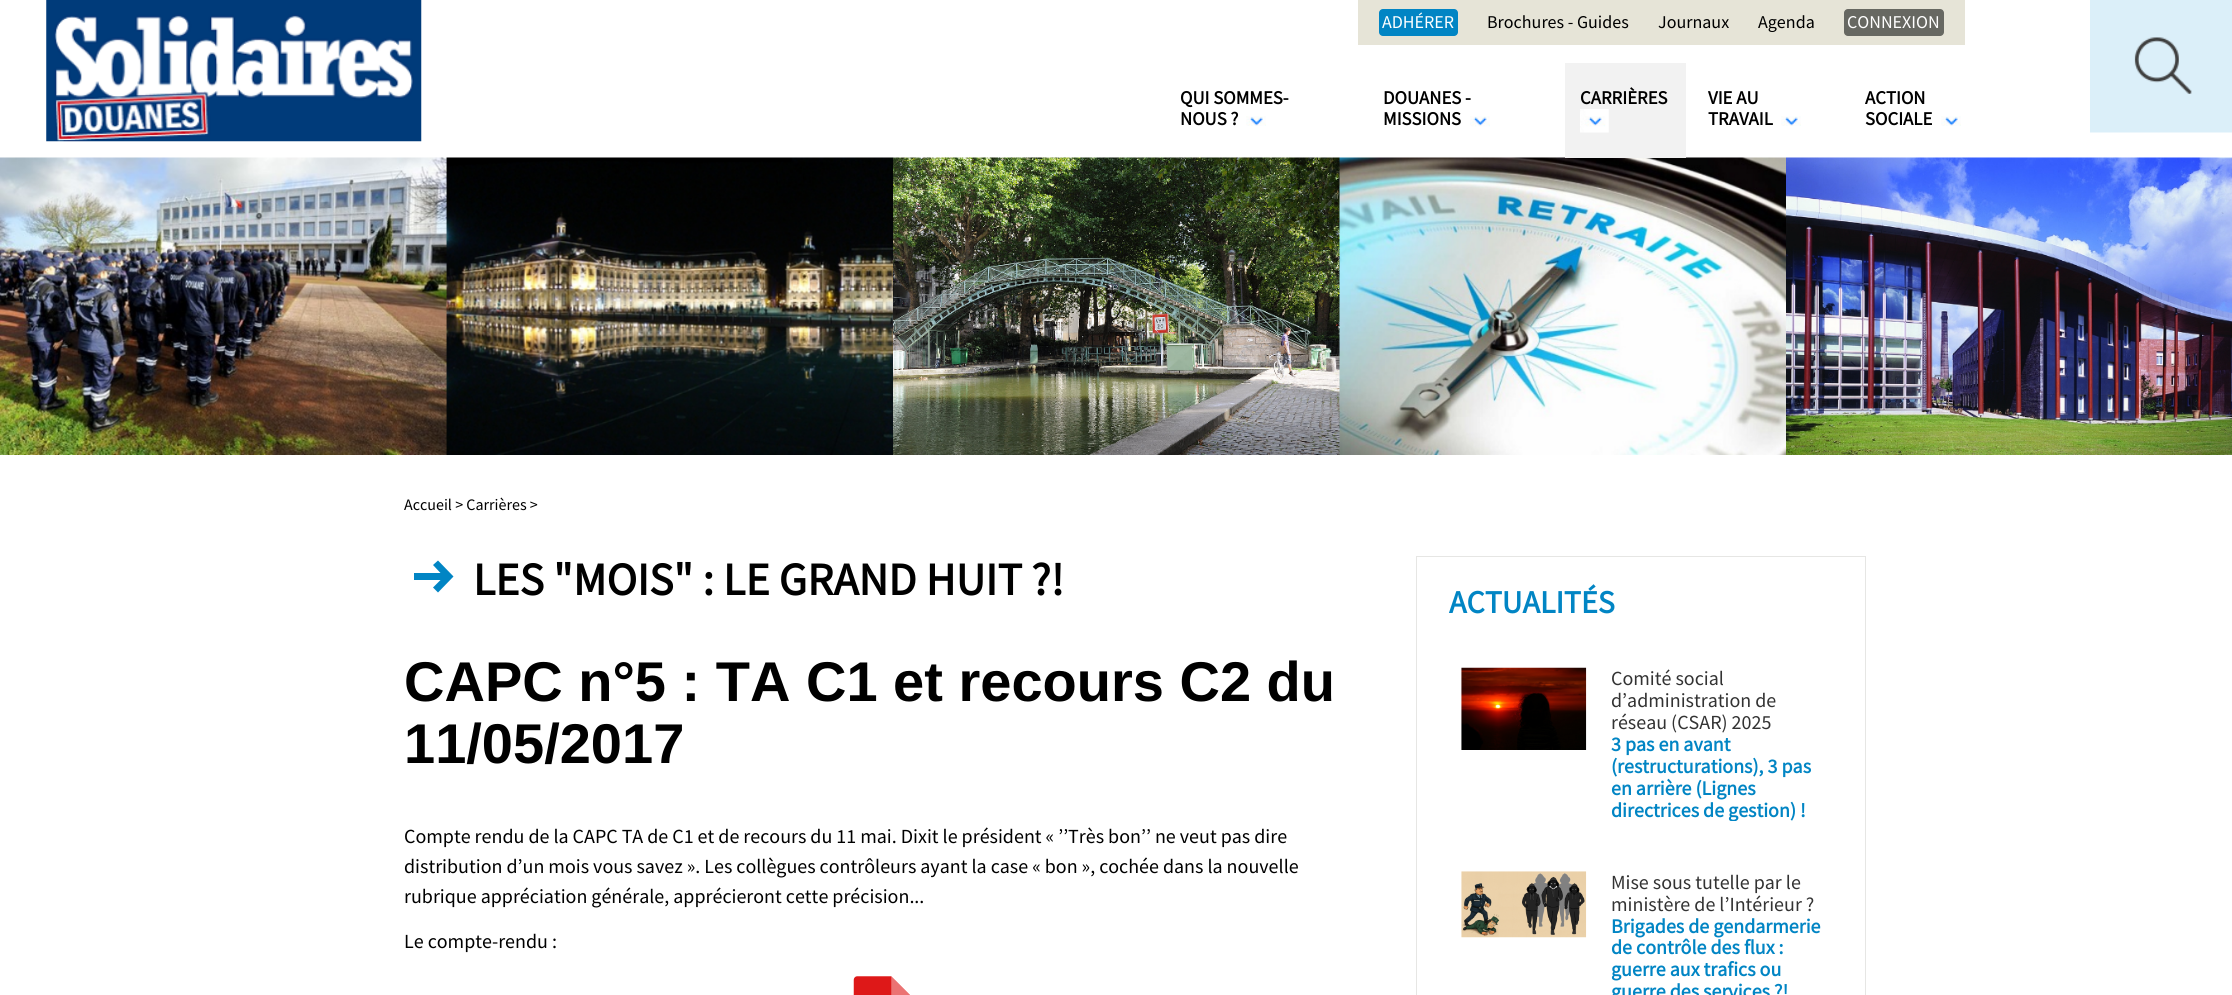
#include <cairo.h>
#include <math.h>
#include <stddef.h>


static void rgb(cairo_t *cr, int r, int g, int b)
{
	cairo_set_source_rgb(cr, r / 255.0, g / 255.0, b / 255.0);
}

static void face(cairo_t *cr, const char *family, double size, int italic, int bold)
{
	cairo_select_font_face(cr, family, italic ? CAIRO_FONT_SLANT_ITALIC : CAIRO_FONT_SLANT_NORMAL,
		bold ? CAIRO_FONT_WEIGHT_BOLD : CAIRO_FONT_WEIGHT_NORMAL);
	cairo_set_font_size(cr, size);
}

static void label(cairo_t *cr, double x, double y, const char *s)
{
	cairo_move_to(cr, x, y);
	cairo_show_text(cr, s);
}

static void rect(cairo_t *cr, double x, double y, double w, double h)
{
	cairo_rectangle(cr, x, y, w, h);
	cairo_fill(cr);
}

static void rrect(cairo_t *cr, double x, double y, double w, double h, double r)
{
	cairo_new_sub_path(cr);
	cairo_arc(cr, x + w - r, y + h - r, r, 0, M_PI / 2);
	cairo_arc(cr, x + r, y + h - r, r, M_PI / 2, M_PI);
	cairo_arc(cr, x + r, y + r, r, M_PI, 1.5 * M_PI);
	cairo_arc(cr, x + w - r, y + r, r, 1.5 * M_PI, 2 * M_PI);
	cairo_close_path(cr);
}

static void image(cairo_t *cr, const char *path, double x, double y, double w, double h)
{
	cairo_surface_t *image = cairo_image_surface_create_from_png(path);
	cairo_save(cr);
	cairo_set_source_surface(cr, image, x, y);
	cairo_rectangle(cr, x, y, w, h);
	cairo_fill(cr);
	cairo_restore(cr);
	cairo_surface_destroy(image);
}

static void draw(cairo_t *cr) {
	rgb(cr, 255, 255, 255);
	cairo_paint(cr);
	image(cr, "image0.png", 46, 0, 376, 142);
	rgb(cr, 230, 228, 215);
	rect(cr, 1358, 0, 607, 45);
	rgb(cr, 1, 133, 196);
	rrect(cr, 1379, 9, 79, 27, 4);
	cairo_fill(cr);
	face(cr, "Source Sans Pro", 18, 0, 0);
	rgb(cr, 255, 255, 255);
	label(cr, 1382, 28, "ADHÉRER");
	rgb(cr, 0, 0, 0);
	label(cr, 1487, 28, "Brochures - Guides");
	label(cr, 1658, 28, "Journaux");
	label(cr, 1758, 28, "Agenda");
	rgb(cr, 103, 104, 98);
	rrect(cr, 1844, 9, 100, 27, 4);
	cairo_fill(cr);
	rgb(cr, 255, 255, 255);
	label(cr, 1847, 28, "CONNEXION");
	image(cr, "image1.png", 2090, 0, 142, 133);
	face(cr, "Source Sans Pro", 18.75, 0, 1);
	rgb(cr, 0, 0, 0);
	label(cr, 1180, 104, "QUI SOMMES-");
	label(cr, 1180, 125, "NOUS ?");
	image(cr, "image2.png", 1246, 116, 20, 10);
	label(cr, 1383, 104, "DOUANES -");
	label(cr, 1383, 125, "MISSIONS");
	image(cr, "image3.png", 1470, 116, 20, 11);
	image(cr, "image5.png", 0, 157, 2232, 298);
	rgb(cr, 242, 242, 242);
	rect(cr, 1565, 63, 121, 95);
	rgb(cr, 0, 0, 0);
	label(cr, 1580, 104, "CARRIÈRES");
	image(cr, "image4.png", 1580, 109, 29, 24);
	label(cr, 1708, 104, "VIE AU");
	label(cr, 1708, 125, "TRAVAIL");
	image(cr, "image2.png", 1781, 116, 20, 10);
	label(cr, 1865, 104, "ACTION");
	label(cr, 1865, 125, "SOCIALE");
	image(cr, "image2.png", 1941, 116, 20, 10);
	face(cr, "Source Sans Pro", 16, 0, 0);
	label(cr, 404, 510, "Accueil > Carrières >");
	rgb(cr, 1, 133, 196);
	cairo_new_path(cr);
	cairo_move_to(cr, 438, 560.5);
	cairo_line_to(cr, 433, 565);
	cairo_line_to(cr, 440.5, 573);
	cairo_line_to(cr, 414, 573);
	cairo_line_to(cr, 414, 580);
	cairo_line_to(cr, 440.5, 580);
	cairo_line_to(cr, 433, 587.5);
	cairo_line_to(cr, 438, 592.5);
	cairo_line_to(cr, 453.5, 576.5);
	cairo_close_path(cr);
	cairo_fill(cr);
	face(cr, "Source Sans Pro", 46, 0, 1);
	rgb(cr, 0, 0, 0);
	label(cr, 473, 595, "LES \"MOIS\" : LE GRAND HUIT ?!");
	face(cr, "Liberation Sans", 56, 0, 1);
	label(cr, 404, 701, "CAPC n°5 : TA C1 et recours C2 du");
	label(cr, 404, 763, "11/05/2017");
	face(cr, "Source Sans Pro", 20, 0, 0);
	label(cr, 404, 843, "Compte rendu de la CAPC TA de C1 et de recours du 11 mai. Dixit le président « ’’Très bon’’ ne veut pas dire");
	label(cr, 404, 873, "distribution d’un mois vous savez ». Les collègues contrôleurs ayant la case « bon », cochée dans la nouvelle");
	label(cr, 404, 903, "rubrique appréciation générale, apprécieront cette précision...");
	label(cr, 404, 948, "Le compte-rendu :");
	image(cr, "image6.png", 853, 976, 57, 19);
	cairo_rectangle(cr, 1416.5, 556.5, 449, 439);
	rgb(cr, 230, 230, 228);
	cairo_set_line_width(cr, 1);
	cairo_stroke(cr);
	face(cr, "Source Sans Pro", 32, 0, 1);
	rgb(cr, 1, 133, 196);
	label(cr, 1449, 613, "ACTUALITÉS");
	image(cr, "image7.png", 1461, 667, 126, 83);
	face(cr, "Source Sans Pro", 20, 0, 0);
	rgb(cr, 51, 51, 51);
	label(cr, 1611, 685, "Comité social");
	label(cr, 1611, 707, "d’administration de");
	label(cr, 1611, 729, "réseau (CSAR) 2025");
	face(cr, "Source Sans Pro", 20, 0, 1);
	rgb(cr, 1, 133, 196);
	label(cr, 1611, 751, "3 pas en avant");
	label(cr, 1611, 773, "(restructurations), 3 pas");
	label(cr, 1611, 795, "en arrière (Lignes");
	cairo_save(cr);
	cairo_rectangle(cr, 1611, 668, 210, 153);
	cairo_clip(cr);
	label(cr, 1611, 817, "directrices de gestion) !");
	cairo_restore(cr);
	image(cr, "image8.png", 1461, 871, 126, 67);
	face(cr, "Source Sans Pro", 20, 0, 0);
	rgb(cr, 51, 51, 51);
	label(cr, 1611, 889, "Mise sous tutelle par le");
	label(cr, 1611, 911, "ministère de l’Intérieur ?");
	face(cr, "Source Sans Pro", 20, 0, 1);
	rgb(cr, 1, 133, 196);
	label(cr, 1611, 933, "Brigades de gendarmerie");
	label(cr, 1611, 954, "de contrôle des flux :");
	label(cr, 1611, 976, "guerre aux trafics ou");
	label(cr, 1611, 998, "guerre des services ?!");
}

int main(void) {
	cairo_surface_t *surface = cairo_image_surface_create(CAIRO_FORMAT_RGB24, 2232, 995);
	cairo_t *cr = cairo_create(surface);
	cairo_font_options_t *options = cairo_font_options_create();
	cairo_font_options_set_hint_metrics(options, CAIRO_HINT_METRICS_OFF);
	cairo_font_options_set_hint_style(options, CAIRO_HINT_STYLE_NONE);
	cairo_set_font_options(cr, options);
	cairo_set_miter_limit(cr, 4);
	draw(cr);
	cairo_surface_write_to_png(surface, "render.png");
	cairo_font_options_destroy(options);
	cairo_destroy(cr);
	cairo_surface_destroy(surface);
	return 0;
}
